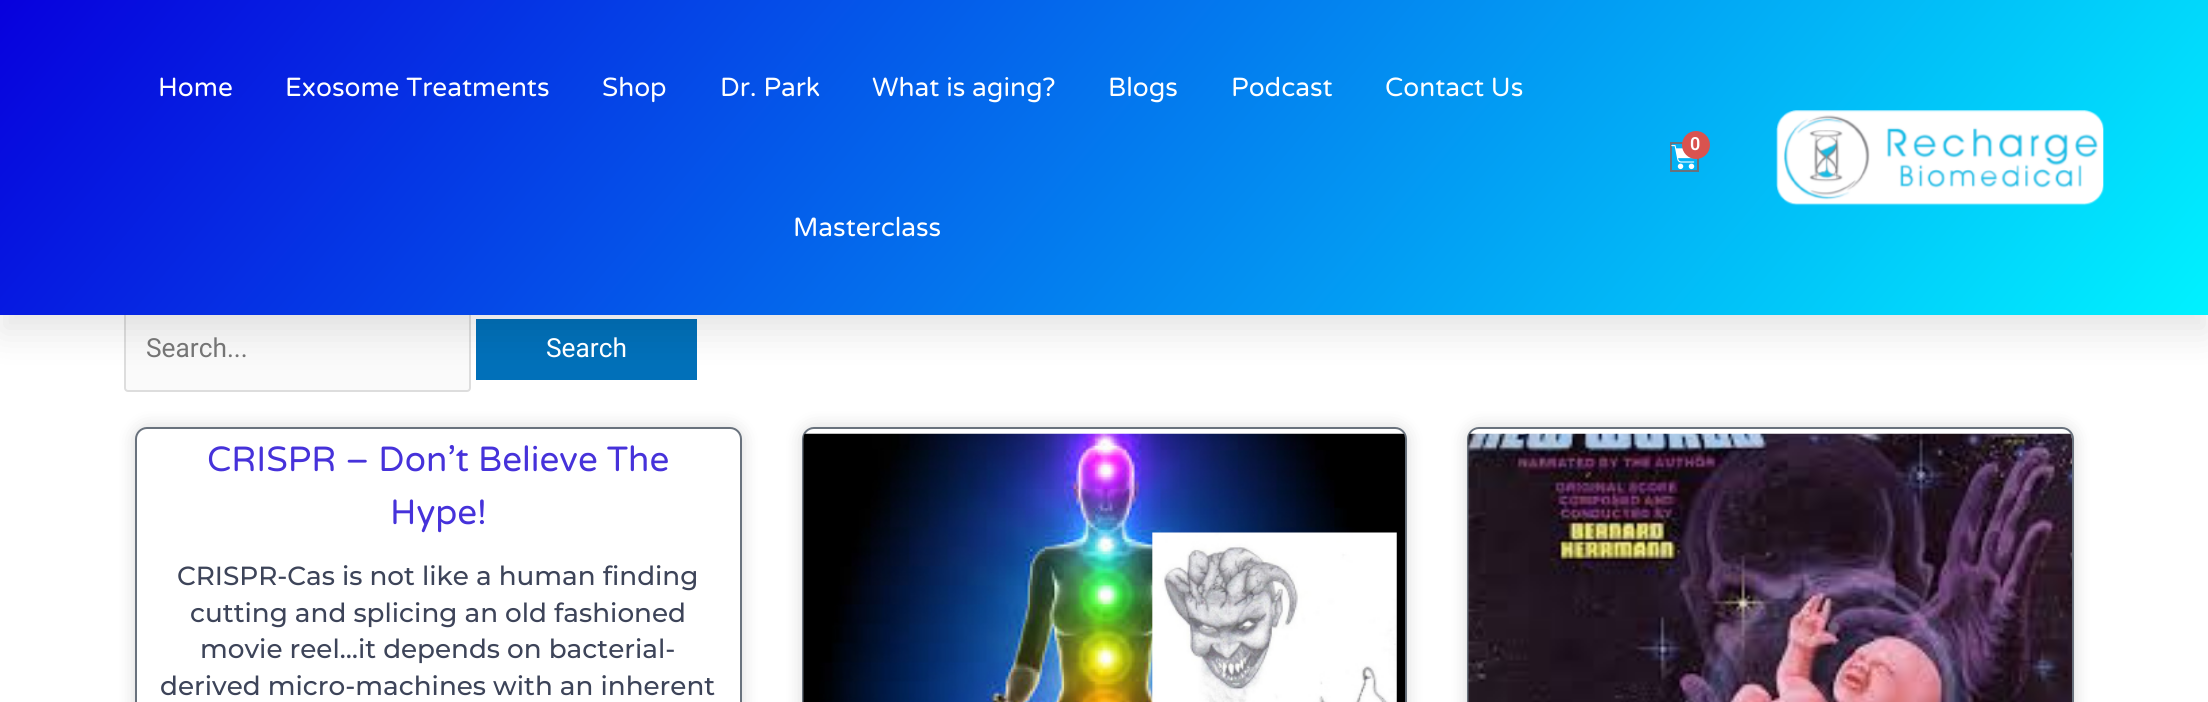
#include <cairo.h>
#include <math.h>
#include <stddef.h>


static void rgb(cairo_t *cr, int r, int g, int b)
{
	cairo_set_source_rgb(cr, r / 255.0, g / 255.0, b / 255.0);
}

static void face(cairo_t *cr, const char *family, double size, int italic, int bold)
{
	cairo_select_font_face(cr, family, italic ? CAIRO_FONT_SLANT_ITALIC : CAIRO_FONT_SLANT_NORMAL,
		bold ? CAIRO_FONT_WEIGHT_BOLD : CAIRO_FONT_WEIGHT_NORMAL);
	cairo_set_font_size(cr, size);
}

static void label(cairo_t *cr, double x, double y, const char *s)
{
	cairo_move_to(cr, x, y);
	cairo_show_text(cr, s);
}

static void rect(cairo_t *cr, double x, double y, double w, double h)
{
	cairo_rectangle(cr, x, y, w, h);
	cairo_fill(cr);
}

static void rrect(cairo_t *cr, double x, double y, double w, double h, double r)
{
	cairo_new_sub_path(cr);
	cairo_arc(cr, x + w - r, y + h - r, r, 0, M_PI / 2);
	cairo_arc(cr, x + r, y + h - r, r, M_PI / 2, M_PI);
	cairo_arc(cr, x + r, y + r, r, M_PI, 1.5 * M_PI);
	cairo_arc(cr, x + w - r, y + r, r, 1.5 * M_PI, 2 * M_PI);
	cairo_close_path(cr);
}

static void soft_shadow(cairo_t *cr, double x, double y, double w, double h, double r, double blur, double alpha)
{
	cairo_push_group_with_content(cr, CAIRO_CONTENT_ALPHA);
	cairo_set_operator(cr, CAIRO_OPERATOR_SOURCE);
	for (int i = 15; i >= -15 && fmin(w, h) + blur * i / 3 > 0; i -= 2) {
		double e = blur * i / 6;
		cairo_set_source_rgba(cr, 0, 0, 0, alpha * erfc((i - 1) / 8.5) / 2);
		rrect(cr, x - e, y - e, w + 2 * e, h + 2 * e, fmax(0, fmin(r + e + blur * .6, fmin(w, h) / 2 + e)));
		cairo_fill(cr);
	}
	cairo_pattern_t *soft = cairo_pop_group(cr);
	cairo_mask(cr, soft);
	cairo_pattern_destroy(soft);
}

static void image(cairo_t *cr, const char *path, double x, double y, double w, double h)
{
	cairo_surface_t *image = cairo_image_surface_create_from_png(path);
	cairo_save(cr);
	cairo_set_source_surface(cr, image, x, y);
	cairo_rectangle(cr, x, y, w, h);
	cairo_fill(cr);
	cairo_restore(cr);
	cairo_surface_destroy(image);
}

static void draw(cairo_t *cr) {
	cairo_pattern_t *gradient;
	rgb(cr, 255, 255, 255);
	cairo_paint(cr);
	rgb(cr, 250, 250, 250);
	rrect(cr, 125, 307, 345, 84, 3);
	cairo_fill_preserve(cr);
	rgb(cr, 221, 221, 221);
	cairo_stroke(cr);
	rgb(cr, 1, 112, 185);
	rect(cr, 476, 319, 221, 61);
	rgb(cr, 0, 0, 0);
	soft_shadow(cr, 0, 18, 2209, 315, 0, 17.5, 0.1);
	gradient = cairo_pattern_create_linear(379, -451, 1830, 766);
	cairo_pattern_add_color_stop_rgba(gradient, 0, 0.027, 0, 0.867, 1);
	cairo_pattern_add_color_stop_rgba(gradient, 1, 0, 0.949, 1, 1);
	cairo_set_source(cr, gradient);
	cairo_pattern_destroy(gradient);
	rect(cr, 0, 0, 2208, 315);
	face(cr, "Varela Round", 26.25, 0, 0);
	rgb(cr, 255, 255, 255);
	label(cr, 158, 96, "Home");
	label(cr, 285, 96, "Exosome Treatments");
	label(cr, 602, 96, "Shop");
	label(cr, 720, 96, "Dr. Park");
	label(cr, 872, 96, "What is aging?");
	label(cr, 1108, 96, "Blogs");
	label(cr, 1231, 96, "Podcast");
	label(cr, 1385, 96, "Contact Us");
	label(cr, 793, 236, "Masterclass");
	cairo_rectangle(cr, 1671, 143, 27, 28);
	rgb(cr, 105, 114, 125);
	cairo_stroke(cr);
	image(cr, "image0.png", 1671, 145, 24, 25);
	rgb(cr, 217, 83, 79);
	cairo_arc(cr, 1696, 145, 14, 0, 2 * M_PI);
	cairo_fill(cr);
	face(cr, "Roboto SemiBold", 18, 0, 0);
	rgb(cr, 255, 255, 255);
	label(cr, 1690, 150, "0");
	image(cr, "image1.png", 1776, 110, 328, 96);
	face(cr, "Roboto", 26.25, 0, 0);
	rgb(cr, 117, 117, 117);
	label(cr, 146, 357, "Search...");
	rgb(cr, 255, 255, 255);
	label(cr, 546, 357, "Search");
	rgb(cr, 0, 0, 0);
	soft_shadow(cr, 135, 427, 607, 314, 12, 9, 0.15);
	rgb(cr, 255, 255, 255);
	rrect(cr, 136, 428, 605, 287, 11);
	cairo_fill_preserve(cr);
	rgb(cr, 105, 114, 125);
	cairo_stroke(cr);
	face(cr, "Varela Round", 35, 0, 0);
	rgb(cr, 70, 50, 218);
	label(cr, 207, 471, "CRISPR – Don’t Believe The");
	label(cr, 390, 524, "Hype!");
	face(cr, "Montserrat Medium", 26.25, 0, 0);
	rgb(cr, 61, 68, 89);
	label(cr, 177, 585, "CRISPR-Cas is not like a human finding");
	label(cr, 190, 622, "cutting and splicing an old fashioned");
	label(cr, 200, 658, "movie reel…it depends on bacterial-");
	label(cr, 160, 695, "derived micro-machines with an inherent");
	rgb(cr, 0, 0, 0);
	soft_shadow(cr, 802, 427, 605, 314, 12, 9, 0.15);
	rgb(cr, 255, 255, 255);
	rrect(cr, 803, 428, 603, 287, 11);
	cairo_fill_preserve(cr);
	rgb(cr, 105, 114, 125);
	cairo_stroke(cr);
	image(cr, "image2.png", 803, 433, 603, 269);
	rgb(cr, 0, 0, 0);
	soft_shadow(cr, 1467, 427, 607, 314, 12, 9, 0.15);
	rgb(cr, 255, 255, 255);
	rrect(cr, 1468, 428, 605, 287, 11);
	cairo_fill_preserve(cr);
	rgb(cr, 105, 114, 125);
	cairo_stroke(cr);
	image(cr, "image3.png", 1468, 433, 604, 269);
}

int main(void) {
	cairo_surface_t *surface = cairo_image_surface_create(CAIRO_FORMAT_RGB24, 2208, 702);
	cairo_t *cr = cairo_create(surface);
	cairo_font_options_t *options = cairo_font_options_create();
	cairo_font_options_set_hint_metrics(options, CAIRO_HINT_METRICS_OFF);
	cairo_font_options_set_hint_style(options, CAIRO_HINT_STYLE_NONE);
	cairo_set_font_options(cr, options);
	cairo_set_miter_limit(cr, 4);
	draw(cr);
	cairo_surface_write_to_png(surface, "render.png");
	cairo_font_options_destroy(options);
	cairo_destroy(cr);
	cairo_surface_destroy(surface);
	return 0;
}
